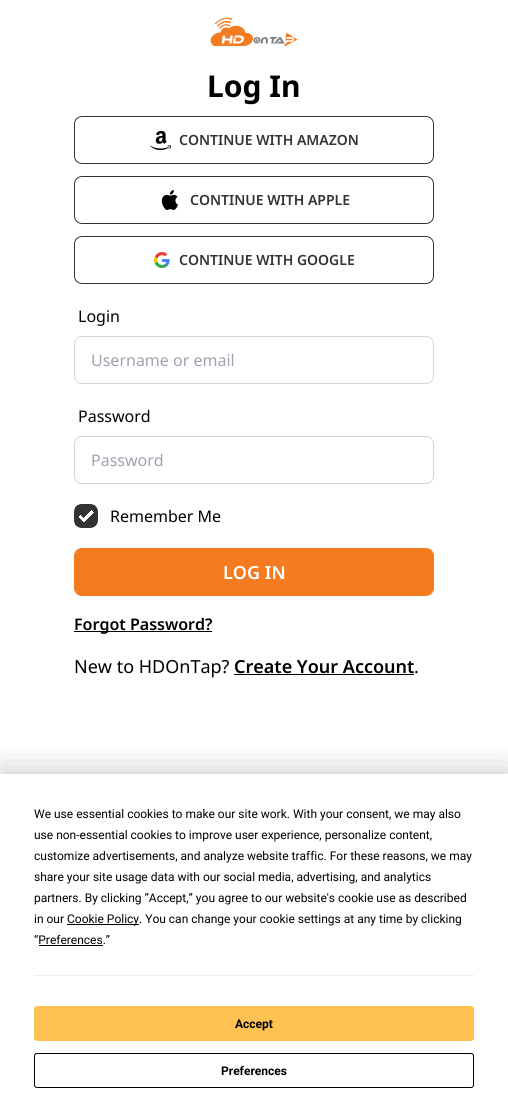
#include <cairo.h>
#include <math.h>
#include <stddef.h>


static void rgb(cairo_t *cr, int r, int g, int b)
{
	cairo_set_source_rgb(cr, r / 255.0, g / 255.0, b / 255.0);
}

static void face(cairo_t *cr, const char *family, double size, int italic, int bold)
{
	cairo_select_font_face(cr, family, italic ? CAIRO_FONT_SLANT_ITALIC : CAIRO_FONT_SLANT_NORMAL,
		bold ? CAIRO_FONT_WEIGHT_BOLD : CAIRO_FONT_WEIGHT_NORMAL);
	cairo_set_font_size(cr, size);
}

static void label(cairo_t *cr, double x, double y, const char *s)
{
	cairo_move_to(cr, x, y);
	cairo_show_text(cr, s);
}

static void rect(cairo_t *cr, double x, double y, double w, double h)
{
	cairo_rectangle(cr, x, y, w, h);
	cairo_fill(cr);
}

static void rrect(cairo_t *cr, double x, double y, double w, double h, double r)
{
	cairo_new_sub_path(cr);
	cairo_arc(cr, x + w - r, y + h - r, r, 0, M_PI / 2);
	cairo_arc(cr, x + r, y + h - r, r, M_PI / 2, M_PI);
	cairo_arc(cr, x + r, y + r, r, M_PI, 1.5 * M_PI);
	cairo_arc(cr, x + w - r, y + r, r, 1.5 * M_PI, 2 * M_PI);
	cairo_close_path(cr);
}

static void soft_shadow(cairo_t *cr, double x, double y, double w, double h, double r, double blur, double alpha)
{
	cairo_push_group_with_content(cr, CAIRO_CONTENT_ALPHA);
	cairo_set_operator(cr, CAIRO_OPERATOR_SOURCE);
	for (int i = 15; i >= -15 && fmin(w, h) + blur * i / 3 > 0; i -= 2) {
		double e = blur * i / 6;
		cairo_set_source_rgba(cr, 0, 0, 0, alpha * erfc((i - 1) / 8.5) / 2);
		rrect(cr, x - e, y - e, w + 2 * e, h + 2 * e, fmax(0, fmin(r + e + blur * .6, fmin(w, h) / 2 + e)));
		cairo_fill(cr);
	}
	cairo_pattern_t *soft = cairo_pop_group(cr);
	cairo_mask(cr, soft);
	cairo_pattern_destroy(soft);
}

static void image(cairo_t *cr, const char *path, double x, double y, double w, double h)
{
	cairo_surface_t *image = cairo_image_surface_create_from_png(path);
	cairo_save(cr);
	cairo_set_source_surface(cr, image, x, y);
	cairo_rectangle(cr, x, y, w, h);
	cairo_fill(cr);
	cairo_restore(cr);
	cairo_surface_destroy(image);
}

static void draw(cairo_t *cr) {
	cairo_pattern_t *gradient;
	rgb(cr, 255, 255, 255);
	cairo_paint(cr);
	image(cr, "image0.png", 210, 17, 88, 30);
	face(cr, "Noto Sans", 30, 0, 1);
	rgb(cr, 0, 0, 0);
	label(cr, 207, 97, "Log In");
	rrect(cr, 74.5, 116.5, 359, 47, 7.5);
	rgb(cr, 51, 51, 51);
	cairo_set_line_width(cr, 1);
	cairo_stroke(cr);
	image(cr, "image1.png", 150, 130, 21, 21);
	face(cr, "Noto Sans SemiBold", 14, 0, 0);
	label(cr, 179, 145, "CONTINUE WITH AMAZON");
	rrect(cr, 74.5, 176.5, 359, 47, 7.5);
	cairo_stroke(cr);
	image(cr, "image2.png", 161, 190, 17, 20);
	label(cr, 190, 205, "CONTINUE WITH APPLE");
	rrect(cr, 74.5, 236.5, 359, 47, 7.5);
	cairo_stroke(cr);
	image(cr, "image3.png", 154, 252, 16, 16);
	label(cr, 179, 265, "CONTINUE WITH GOOGLE");
	face(cr, "Noto Sans", 16, 0, 0);
	rgb(cr, 0, 0, 0);
	label(cr, 78, 322, "Login");
	rrect(cr, 74.5, 336.5, 359, 47, 7.5);
	rgb(cr, 214, 214, 214);
	cairo_stroke(cr);
	rgb(cr, 156, 163, 175);
	label(cr, 91, 366, "Username or email");
	rgb(cr, 0, 0, 0);
	label(cr, 78, 422, "Password");
	rrect(cr, 74.5, 436.5, 359, 47, 7.5);
	rgb(cr, 214, 214, 214);
	cairo_stroke(cr);
	rgb(cr, 156, 163, 175);
	label(cr, 91, 466, "Password");
	rgb(cr, 51, 51, 51);
	rrect(cr, 74, 504, 24, 24, 8);
	cairo_fill(cr);
	cairo_save(cr);
	rrect(cr, 74, 504, 24, 24, 8);
	cairo_clip(cr);
	gradient = cairo_pattern_create_linear(97, 527, 75, 505);
	cairo_pattern_add_color_stop_rgba(gradient, 0.5, 1, 1, 1, 1);
	cairo_pattern_add_color_stop_rgba(gradient, 0.51, 0.2, 0.2, 0.2, 1);
	cairo_set_source(cr, gradient);
	cairo_pattern_destroy(gradient);
	rect(cr, 75, 505, 22, 22);
	gradient = cairo_pattern_create_linear(75, 527, 97, 505);
	cairo_pattern_add_color_stop_rgba(gradient, 0.3, 0.2, 0.2, 0.2, 1);
	cairo_pattern_add_color_stop_rgba(gradient, 0.31, 1, 1, 1, 1);
	cairo_pattern_add_color_stop_rgba(gradient, 0.4, 1, 1, 1, 1);
	cairo_pattern_add_color_stop_rgba(gradient, 0.41, 1, 1, 1, 0);
	cairo_set_source(cr, gradient);
	cairo_pattern_destroy(gradient);
	rect(cr, 75, 514, 11, 13);
	gradient = cairo_pattern_create_linear(97, 527, 75, 505);
	cairo_pattern_add_color_stop_rgba(gradient, 0.4, 0.2, 0.2, 0.2, 1);
	cairo_pattern_add_color_stop_rgba(gradient, 0.41, 0.2, 0.2, 0.2, 0);
	cairo_set_source(cr, gradient);
	cairo_pattern_destroy(gradient);
	rect(cr, 79, 512, 18, 15);
	gradient = cairo_pattern_create_linear(75, 527, 97, 505);
	cairo_pattern_add_color_stop_rgba(gradient, 0.75, 0.2, 0.2, 0.2, 0);
	cairo_pattern_add_color_stop_rgba(gradient, 0.76, 0.2, 0.2, 0.2, 1);
	cairo_set_source(cr, gradient);
	cairo_pattern_destroy(gradient);
	rect(cr, 88, 505, 9, 10);
	gradient = cairo_pattern_create_linear(97, 527, 75, 505);
	cairo_pattern_add_color_stop_rgba(gradient, 0.65, 0.2, 0.2, 0.2, 0);
	cairo_pattern_add_color_stop_rgba(gradient, 0.66, 0.2, 0.2, 0.2, 1);
	cairo_set_source(cr, gradient);
	cairo_pattern_destroy(gradient);
	rect(cr, 75, 505, 15, 15);
	cairo_restore(cr);
	rrect(cr, 74.5, 504.5, 23, 23, 7.5);
	cairo_set_source_rgba(cr, 0.2, 0.2, 0.2, 0.2);
	cairo_stroke(cr);
	rgb(cr, 0, 0, 0);
	label(cr, 110, 522, "Remember Me");
	rgb(cr, 244, 123, 32);
	rrect(cr, 74.5, 548.5, 359, 47, 7.5);
	cairo_fill_preserve(cr);
	cairo_stroke(cr);
	face(cr, "Noto Sans SemiBold", 18, 0, 0);
	rgb(cr, 255, 255, 255);
	label(cr, 223, 579, "LOG IN");
	rgb(cr, 0, 0, 0);
	rect(cr, 74, 631, 138, 1);
	face(cr, "Noto Sans SemiBold", 16, 0, 0);
	label(cr, 74, 630, "Forgot Password?");
	face(cr, "Noto Sans", 18, 0, 0);
	label(cr, 74, 673, "New to HDOnTap?");
	face(cr, "Noto Sans SemiBold", 18, 0, 0);
	label(cr, 234, 673, "Create Your Account");
	rect(cr, 234, 674, 180, 1);
	face(cr, "Noto Sans", 18, 0, 0);
	label(cr, 414, 673, ".");
	cairo_save(cr);
	cairo_rectangle(cr, 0, 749, 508, 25);
	cairo_clip(cr);
	rgb(cr, 0, 0, 0);
	soft_shadow(cr, 0, 774, 508, 344, 0, 17.5, 0.25);
	cairo_restore(cr);
	face(cr, "Roboto", 12, 0, 0);
	label(cr, 34, 818, "We use essential cookies to make our site work. With your consent, we may also");
	label(cr, 34, 839, "use non-essential cookies to improve user experience, personalize content,");
	label(cr, 34, 860, "customize advertisements, and analyze website traffic. For these reasons, we may");
	label(cr, 34, 881, "share your site usage data with our social media, advertising, and analytics");
	label(cr, 34, 902, "partners. By clicking ”Accept,” you agree to our website's cookie use as described");
	label(cr, 34, 923, "in our");
	rect(cr, 67, 924, 72, 1);
	label(cr, 67, 923, "Cookie Policy. You can change your cookie settings at any time by clicking");
	label(cr, 34, 944, "“Preferences.”");
	rect(cr, 39, 945, 64, 1);
	rgb(cr, 237, 237, 239);
	rect(cr, 34, 975, 440, 1);
	rgb(cr, 255, 194, 82);
	rrect(cr, 34.5, 1006.5, 439, 34, 2.5);
	cairo_fill_preserve(cr);
	cairo_stroke(cr);
	face(cr, "Roboto", 12, 0, 1);
	rgb(cr, 0, 0, 0);
	label(cr, 235, 1028, "Accept");
	rrect(cr, 34.5, 1053.5, 439, 34, 2.5);
	cairo_stroke(cr);
	label(cr, 221, 1075, "Preferences");
}

int main(void) {
	cairo_surface_t *surface = cairo_image_surface_create(CAIRO_FORMAT_RGB24, 508, 1118);
	cairo_t *cr = cairo_create(surface);
	cairo_font_options_t *options = cairo_font_options_create();
	cairo_font_options_set_hint_metrics(options, CAIRO_HINT_METRICS_OFF);
	cairo_font_options_set_hint_style(options, CAIRO_HINT_STYLE_NONE);
	cairo_set_font_options(cr, options);
	cairo_set_miter_limit(cr, 4);
	draw(cr);
	cairo_surface_write_to_png(surface, "render.png");
	cairo_font_options_destroy(options);
	cairo_destroy(cr);
	cairo_surface_destroy(surface);
	return 0;
}
